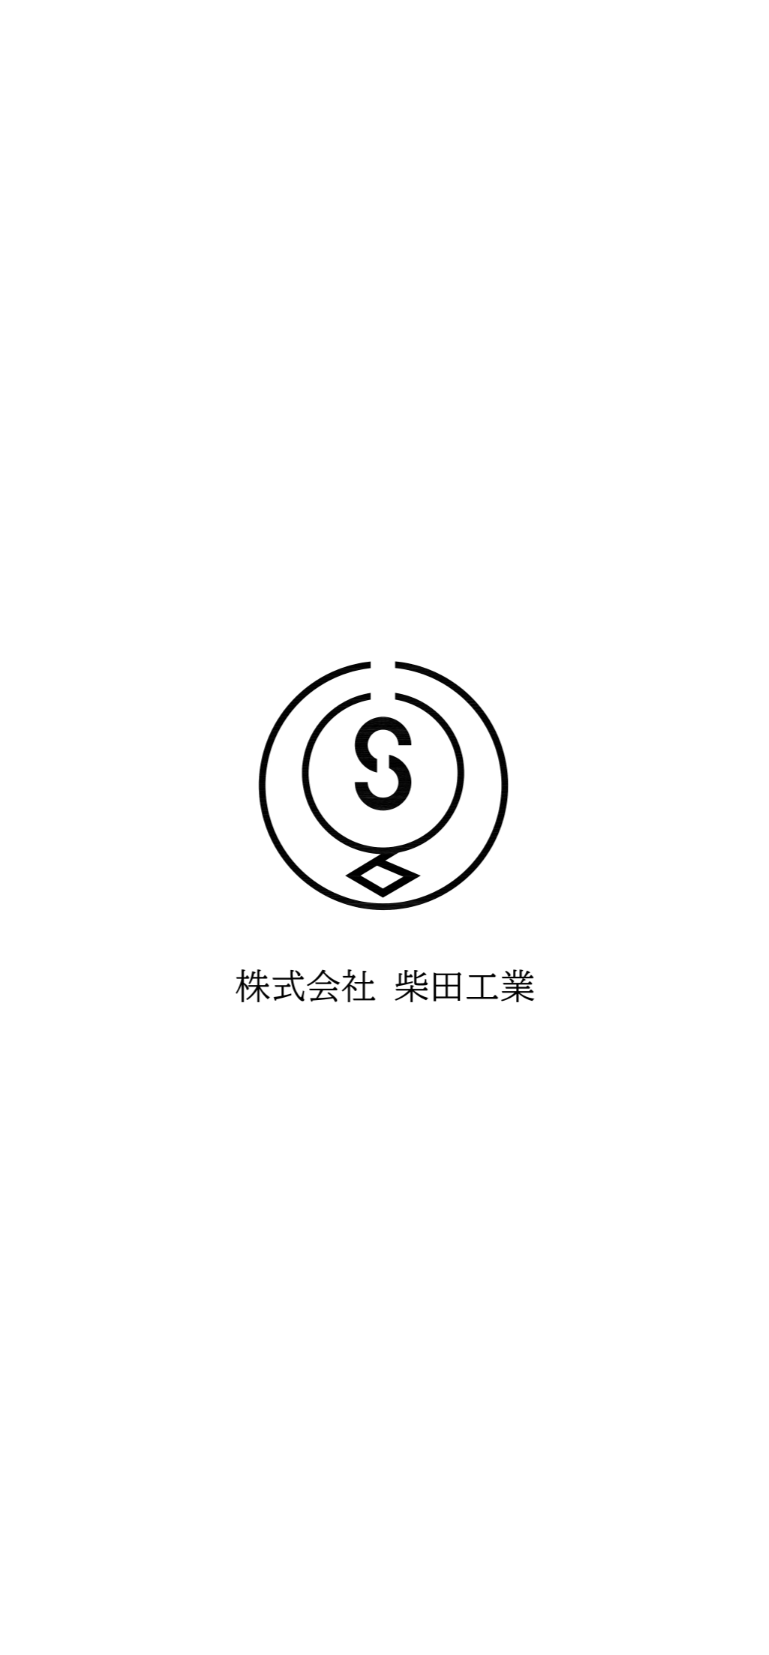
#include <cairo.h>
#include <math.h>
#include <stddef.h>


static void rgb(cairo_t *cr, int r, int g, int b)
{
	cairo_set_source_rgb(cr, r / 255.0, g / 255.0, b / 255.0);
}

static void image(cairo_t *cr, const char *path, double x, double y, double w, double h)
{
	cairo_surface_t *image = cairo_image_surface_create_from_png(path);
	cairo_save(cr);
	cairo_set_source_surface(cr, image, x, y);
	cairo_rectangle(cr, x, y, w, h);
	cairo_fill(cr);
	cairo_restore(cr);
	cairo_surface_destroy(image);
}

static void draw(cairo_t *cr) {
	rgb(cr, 255, 255, 255);
	cairo_paint(cr);
	image(cr, "image0.png", 235, 661, 300, 342);
}

int main(void) {
	cairo_surface_t *surface = cairo_image_surface_create(CAIRO_FORMAT_RGB24, 769, 1655);
	cairo_t *cr = cairo_create(surface);
	cairo_font_options_t *options = cairo_font_options_create();
	cairo_font_options_set_hint_metrics(options, CAIRO_HINT_METRICS_OFF);
	cairo_font_options_set_hint_style(options, CAIRO_HINT_STYLE_NONE);
	cairo_set_font_options(cr, options);
	cairo_set_miter_limit(cr, 4);
	draw(cr);
	cairo_surface_write_to_png(surface, "render.png");
	cairo_font_options_destroy(options);
	cairo_destroy(cr);
	cairo_surface_destroy(surface);
	return 0;
}
